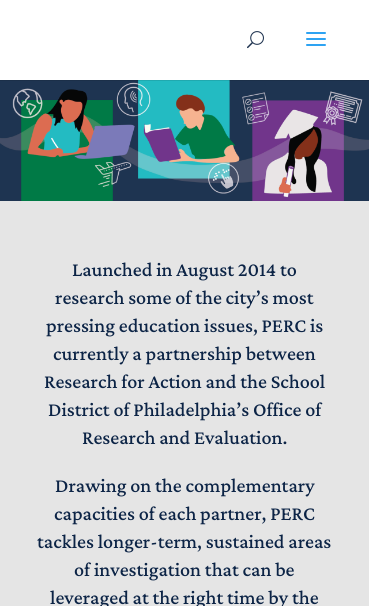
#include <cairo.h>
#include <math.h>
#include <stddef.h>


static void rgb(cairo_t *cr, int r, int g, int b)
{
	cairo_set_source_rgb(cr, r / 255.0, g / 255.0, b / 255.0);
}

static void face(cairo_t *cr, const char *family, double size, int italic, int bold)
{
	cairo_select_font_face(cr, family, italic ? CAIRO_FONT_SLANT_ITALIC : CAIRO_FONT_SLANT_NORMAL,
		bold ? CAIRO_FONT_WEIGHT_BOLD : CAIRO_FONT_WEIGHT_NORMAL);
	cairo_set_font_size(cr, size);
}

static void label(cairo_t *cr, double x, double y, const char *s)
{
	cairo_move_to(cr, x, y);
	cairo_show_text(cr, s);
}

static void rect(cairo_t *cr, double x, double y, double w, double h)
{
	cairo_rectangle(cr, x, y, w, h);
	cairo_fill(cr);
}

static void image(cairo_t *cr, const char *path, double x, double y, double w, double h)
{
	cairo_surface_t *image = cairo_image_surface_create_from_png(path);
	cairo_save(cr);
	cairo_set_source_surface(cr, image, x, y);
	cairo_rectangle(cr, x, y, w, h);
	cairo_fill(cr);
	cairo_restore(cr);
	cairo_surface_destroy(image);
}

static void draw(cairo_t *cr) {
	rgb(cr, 255, 255, 255);
	cairo_paint(cr);
	image(cr, "image2.png", 0, 80, 369, 121);
	cairo_set_source_rgba(cr, 0, 0, 0, 0.1);
	rect(cr, 0, 80, 369, 1);
	image(cr, "image0.png", 247, 31, 17, 18);
	image(cr, "image1.png", 306, 32, 20, 14);
	rgb(cr, 229, 229, 229);
	rect(cr, 0, 201, 369, 405);
	face(cr, "Crimson Pro Medium", 20, 0, 0);
	rgb(cr, 12, 36, 70);
	label(cr, 72, 276, "Launched in August 2014 to");
	label(cr, 55, 304, "research some of the city’s most");
	label(cr, 46, 332, "pressing education issues, PERC is");
	label(cr, 53, 360, "currently a partnership between");
	label(cr, 44, 388, "Research for Action and the School");
	label(cr, 48, 416, "District of Philadelphia’s Office of");
	label(cr, 82, 444, "Research and Evaluation.");
	label(cr, 55, 492, "Drawing on the complementary");
	label(cr, 54, 520, "capacities of each partner, PERC");
	label(cr, 37, 548, "tackles longer-term, sustained areas");
	label(cr, 74, 576, "of investigation that can be");
	label(cr, 50, 604, "leveraged at the right time by the");
}

int main(void) {
	cairo_surface_t *surface = cairo_image_surface_create(CAIRO_FORMAT_RGB24, 369, 606);
	cairo_t *cr = cairo_create(surface);
	cairo_font_options_t *options = cairo_font_options_create();
	cairo_font_options_set_hint_metrics(options, CAIRO_HINT_METRICS_OFF);
	cairo_font_options_set_hint_style(options, CAIRO_HINT_STYLE_NONE);
	cairo_set_font_options(cr, options);
	cairo_set_miter_limit(cr, 4);
	draw(cr);
	cairo_surface_write_to_png(surface, "render.png");
	cairo_font_options_destroy(options);
	cairo_destroy(cr);
	cairo_surface_destroy(surface);
	return 0;
}
